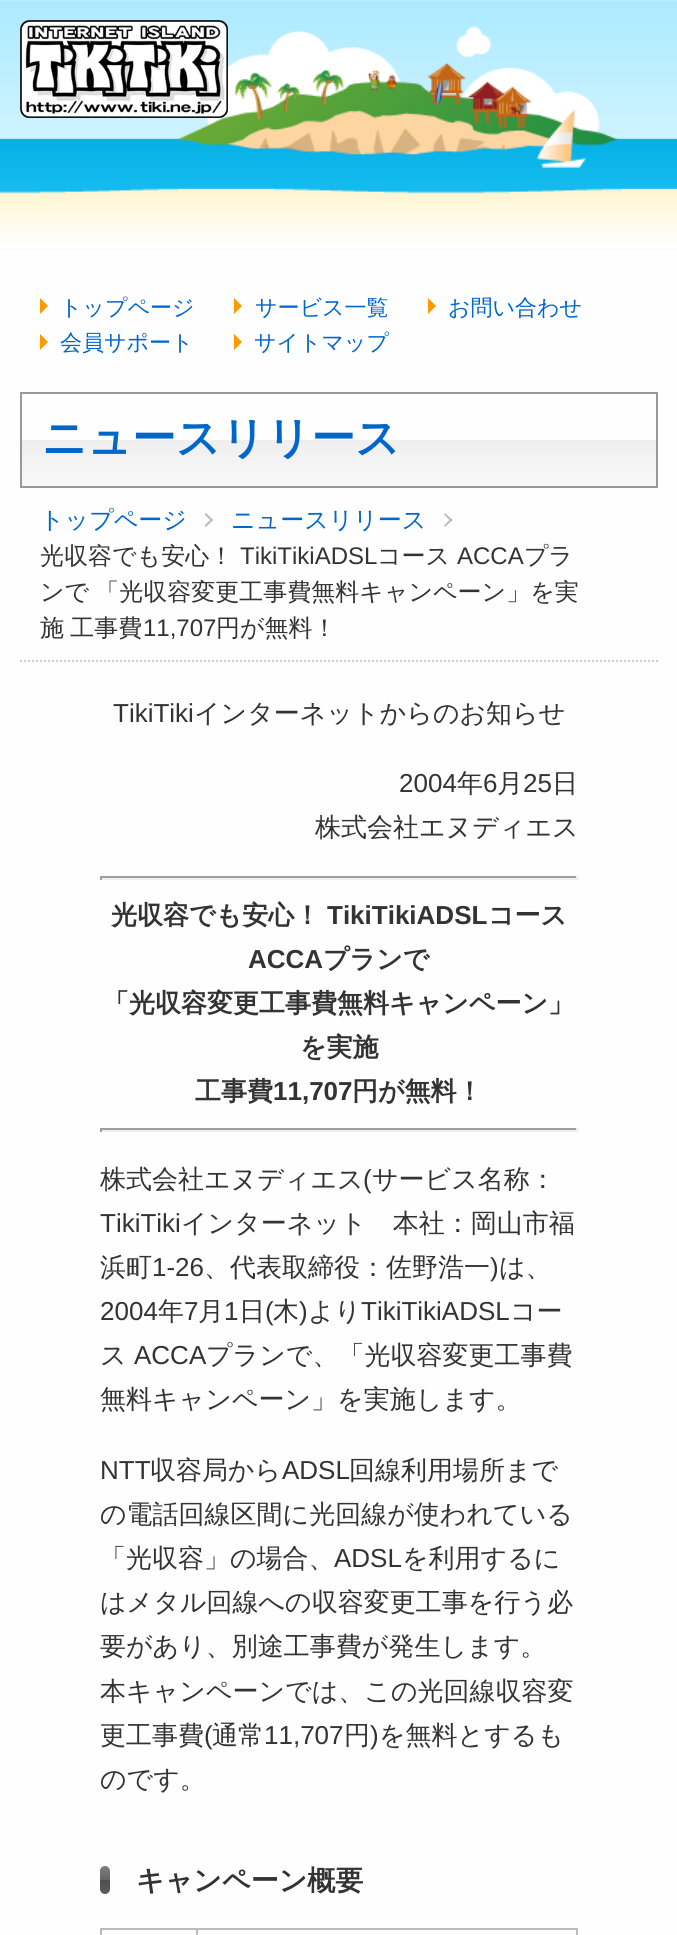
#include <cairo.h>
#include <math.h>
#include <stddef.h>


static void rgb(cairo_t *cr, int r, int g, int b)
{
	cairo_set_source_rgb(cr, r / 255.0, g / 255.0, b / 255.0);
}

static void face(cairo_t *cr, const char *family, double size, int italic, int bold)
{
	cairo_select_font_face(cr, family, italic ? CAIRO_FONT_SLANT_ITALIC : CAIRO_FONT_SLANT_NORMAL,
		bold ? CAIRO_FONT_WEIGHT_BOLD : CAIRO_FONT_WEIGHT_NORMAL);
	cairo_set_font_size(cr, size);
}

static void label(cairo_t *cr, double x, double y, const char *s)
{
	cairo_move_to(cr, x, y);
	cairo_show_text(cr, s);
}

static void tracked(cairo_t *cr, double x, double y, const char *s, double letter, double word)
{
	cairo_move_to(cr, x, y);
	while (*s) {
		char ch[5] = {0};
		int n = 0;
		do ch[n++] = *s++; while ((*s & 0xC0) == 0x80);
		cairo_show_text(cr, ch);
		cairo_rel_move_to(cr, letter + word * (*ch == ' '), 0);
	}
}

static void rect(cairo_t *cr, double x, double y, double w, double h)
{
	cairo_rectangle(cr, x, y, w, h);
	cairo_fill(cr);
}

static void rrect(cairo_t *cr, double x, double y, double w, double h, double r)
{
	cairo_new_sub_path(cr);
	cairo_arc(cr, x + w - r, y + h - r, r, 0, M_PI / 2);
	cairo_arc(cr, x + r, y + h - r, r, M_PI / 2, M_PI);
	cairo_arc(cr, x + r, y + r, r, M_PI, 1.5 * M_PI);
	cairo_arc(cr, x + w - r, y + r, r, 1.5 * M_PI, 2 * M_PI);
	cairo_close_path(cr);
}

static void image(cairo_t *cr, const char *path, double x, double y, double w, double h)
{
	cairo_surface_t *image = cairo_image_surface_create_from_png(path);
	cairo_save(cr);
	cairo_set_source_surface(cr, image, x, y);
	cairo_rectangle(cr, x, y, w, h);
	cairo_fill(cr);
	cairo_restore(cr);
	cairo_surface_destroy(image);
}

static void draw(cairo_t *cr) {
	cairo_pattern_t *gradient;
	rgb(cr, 254, 254, 254);
	cairo_paint(cr);
	image(cr, "image0.png", 0, 0, 677, 250);
	image(cr, "image1.png", 176, 26, 443, 142);
	image(cr, "image2.png", 20, 20, 208, 98);
	rgb(cr, 255, 153, 0);
	cairo_new_path(cr);
	cairo_move_to(cr, 40, 314);
	cairo_line_to(cr, 40, 298);
	cairo_line_to(cr, 48, 306);
	cairo_close_path(cr);
	cairo_fill(cr);
	face(cr, "WenQuanYi Zen Hei Medium", 22, 0, 0);
	rgb(cr, 0, 102, 204);
	label(cr, 60, 315, "トップページ");
	rgb(cr, 255, 153, 0);
	cairo_new_path(cr);
	cairo_move_to(cr, 234, 314);
	cairo_line_to(cr, 234, 298);
	cairo_line_to(cr, 242, 306);
	cairo_close_path(cr);
	cairo_fill(cr);
	rgb(cr, 0, 102, 204);
	label(cr, 255, 315, "サービス一覧");
	rgb(cr, 255, 153, 0);
	cairo_new_path(cr);
	cairo_move_to(cr, 428, 314);
	cairo_line_to(cr, 428, 298);
	cairo_line_to(cr, 436, 306);
	cairo_close_path(cr);
	cairo_fill(cr);
	rgb(cr, 0, 102, 204);
	label(cr, 448, 315, "お問い合わせ");
	rgb(cr, 255, 153, 0);
	cairo_new_path(cr);
	cairo_move_to(cr, 40, 350);
	cairo_line_to(cr, 40, 334);
	cairo_line_to(cr, 48, 342);
	cairo_close_path(cr);
	cairo_fill(cr);
	rgb(cr, 0, 102, 204);
	label(cr, 60, 350, "会員サポート");
	rgb(cr, 255, 153, 0);
	cairo_new_path(cr);
	cairo_move_to(cr, 234, 350);
	cairo_line_to(cr, 234, 334);
	cairo_line_to(cr, 242, 342);
	cairo_close_path(cr);
	cairo_fill(cr);
	rgb(cr, 0, 102, 204);
	label(cr, 254, 350, "サイトマップ");
	gradient = cairo_pattern_create_linear(339, 394, 339, 486);
	cairo_pattern_add_color_stop_rgba(gradient, 0, 1, 1, 1, 1);
	cairo_pattern_add_color_stop_rgba(gradient, 0.5, 0.992, 0.992, 0.992, 1);
	cairo_pattern_add_color_stop_rgba(gradient, 0.5, 0.937, 0.937, 0.937, 1);
	cairo_pattern_add_color_stop_rgba(gradient, 1, 0.973, 0.973, 0.973, 1);
	cairo_set_source(cr, gradient);
	cairo_pattern_destroy(gradient);
	rect(cr, 22, 440, 634, 46);
	cairo_rectangle(cr, 21, 393, 636, 94);
	rgb(cr, 153, 153, 153);
	cairo_stroke(cr);
	face(cr, "WenQuanYi Zen Hei", 44, 0, 1);
	rgb(cr, 0, 102, 204);
	label(cr, 42, 453, "ニュースリリース");
	cairo_new_path(cr);
	cairo_move_to(cr, 20, 661);
	cairo_line_to(cr, 658, 661);
	rgb(cr, 204, 204, 204);
	cairo_set_dash(cr, (double[]){2, 2}, 2, 0);
	cairo_stroke(cr);
	face(cr, "WenQuanYi Zen Hei Medium", 24, 0, 0);
	rgb(cr, 0, 102, 204);
	label(cr, 40, 528, "トップページ");
	rgb(cr, 187, 187, 187);
	cairo_new_path(cr);
	cairo_move_to(cr, 206, 513);
	cairo_line_to(cr, 213, 520);
	cairo_line_to(cr, 211.5, 521.5);
	cairo_line_to(cr, 204.5, 514.5);
	cairo_close_path(cr);
	cairo_fill(cr);
	cairo_new_path(cr);
	cairo_move_to(cr, 211.5, 518.5);
	cairo_line_to(cr, 213, 520);
	cairo_line_to(cr, 206, 527);
	cairo_line_to(cr, 204.5, 525.5);
	cairo_close_path(cr);
	cairo_fill(cr);
	rgb(cr, 0, 102, 204);
	label(cr, 231, 528, "ニュースリリース");
	rgb(cr, 187, 187, 187);
	cairo_new_path(cr);
	cairo_move_to(cr, 445, 513);
	cairo_line_to(cr, 452.5, 520);
	cairo_line_to(cr, 451, 521.5);
	cairo_line_to(cr, 444, 514.5);
	cairo_close_path(cr);
	cairo_fill(cr);
	cairo_new_path(cr);
	cairo_move_to(cr, 451, 518.5);
	cairo_line_to(cr, 452.5, 520);
	cairo_line_to(cr, 445, 527);
	cairo_line_to(cr, 444, 525.5);
	cairo_close_path(cr);
	cairo_fill(cr);
	rgb(cr, 51, 51, 51);
	label(cr, 40, 564, "光収容でも安心！");
	face(cr, "Liberation Sans", 24, 0, 0);
	label(cr, 240, 564, "TikiTikiADSL");
	face(cr, "WenQuanYi Zen Hei Medium", 24, 0, 0);
	label(cr, 377, 564, "コース");
	face(cr, "Liberation Sans", 24, 0, 0);
	label(cr, 457, 564, "ACCA");
	face(cr, "WenQuanYi Zen Hei Medium", 24, 0, 0);
	label(cr, 524, 564, "プラ");
	tracked(cr, 40, 600, "ンで 「光収容変更工事費無料キャンペーン」を実", 0, -1);
	tracked(cr, 40, 636, "施 工事費", 0, -1);
	face(cr, "Liberation Sans", 24, 0, 0);
	label(cr, 143, 636, "11,707");
	face(cr, "WenQuanYi Zen Hei Medium", 24, 0, 0);
	label(cr, 216, 636, "円が無料！");
	face(cr, "Liberation Sans", 26, 0, 0);
	label(cr, 113, 722, "TikiTiki");
	face(cr, "WenQuanYi Zen Hei Medium", 26, 0, 0);
	label(cr, 194, 722, "インターネットからのお知らせ");
	face(cr, "Liberation Sans", 26, 0, 0);
	label(cr, 399, 792, "2004");
	face(cr, "WenQuanYi Zen Hei Medium", 26, 0, 0);
	label(cr, 457, 792, "年");
	face(cr, "Liberation Sans", 26, 0, 0);
	label(cr, 483, 792, "6");
	face(cr, "WenQuanYi Zen Hei Medium", 26, 0, 0);
	label(cr, 497, 792, "月");
	face(cr, "Liberation Sans", 26, 0, 0);
	label(cr, 523, 792, "25");
	face(cr, "WenQuanYi Zen Hei Medium", 26, 0, 0);
	label(cr, 552, 792, "日");
	label(cr, 315, 836, "株式会社エヌディエス");
	rgb(cr, 159, 159, 159);
	rect(cr, 100, 876, 478, 2);
	rgb(cr, 238, 238, 238);
	rect(cr, 576, 876, 2, 4);
	rect(cr, 100, 878, 478, 2);
	rgb(cr, 159, 159, 159);
	rect(cr, 100, 876, 2, 4);
	face(cr, "WenQuanYi Zen Hei", 26, 0, 1);
	rgb(cr, 51, 51, 51);
	label(cr, 111, 924, "光収容でも安心！");
	face(cr, "Liberation Sans", 26, 0, 1);
	label(cr, 327, 924, "TikiTikiADSL");
	face(cr, "WenQuanYi Zen Hei", 26, 0, 1);
	label(cr, 488, 924, "コース");
	face(cr, "Liberation Sans", 26, 0, 1);
	label(cr, 248, 968, "ACCA");
	face(cr, "WenQuanYi Zen Hei", 26, 0, 1);
	label(cr, 323, 968, "プランで");
	label(cr, 103, 1012, "「光収容変更工事費無料キャンペーン」");
	label(cr, 300, 1056, "を実施");
	label(cr, 195, 1100, "工事費");
	face(cr, "Liberation Sans", 26, 0, 1);
	label(cr, 273, 1100, "11,707");
	face(cr, "WenQuanYi Zen Hei", 26, 0, 1);
	label(cr, 352, 1100, "円が無料！");
	rgb(cr, 159, 159, 159);
	rect(cr, 100, 1128, 478, 2);
	rgb(cr, 238, 238, 238);
	rect(cr, 576, 1128, 2, 4);
	rect(cr, 100, 1130, 478, 2);
	rgb(cr, 159, 159, 159);
	rect(cr, 100, 1128, 2, 4);
	face(cr, "WenQuanYi Zen Hei Medium", 26, 0, 0);
	rgb(cr, 51, 51, 51);
	label(cr, 100, 1188, "株式会社エヌディエス");
	face(cr, "Liberation Sans", 26, 0, 0);
	label(cr, 363, 1188, "(");
	face(cr, "WenQuanYi Zen Hei Medium", 26, 0, 0);
	label(cr, 372, 1188, "サービス名称：");
	face(cr, "Liberation Sans", 26, 0, 0);
	label(cr, 100, 1232, "TikiTiki");
	face(cr, "WenQuanYi Zen Hei Medium", 26, 0, 0);
	label(cr, 181, 1232, "インターネット　本社：岡山市福");
	label(cr, 100, 1276, "浜町");
	face(cr, "Liberation Sans", 26, 0, 0);
	label(cr, 152, 1276, "1-26");
	face(cr, "WenQuanYi Zen Hei Medium", 26, 0, 0);
	label(cr, 204, 1276, "、代表取締役：佐野浩一");
	face(cr, "Liberation Sans", 26, 0, 0);
	label(cr, 490, 1276, ")");
	face(cr, "WenQuanYi Zen Hei Medium", 26, 0, 0);
	label(cr, 499, 1276, "は、");
	face(cr, "Liberation Sans", 26, 0, 0);
	label(cr, 100, 1320, "2004");
	face(cr, "WenQuanYi Zen Hei Medium", 26, 0, 0);
	label(cr, 158, 1320, "年");
	face(cr, "Liberation Sans", 26, 0, 0);
	label(cr, 184, 1320, "7");
	face(cr, "WenQuanYi Zen Hei Medium", 26, 0, 0);
	label(cr, 198, 1320, "月");
	face(cr, "Liberation Sans", 26, 0, 0);
	label(cr, 224, 1320, "1");
	face(cr, "WenQuanYi Zen Hei Medium", 26, 0, 0);
	label(cr, 239, 1320, "日");
	face(cr, "Liberation Sans", 26, 0, 0);
	label(cr, 265, 1320, "(");
	face(cr, "WenQuanYi Zen Hei Medium", 26, 0, 0);
	label(cr, 273, 1320, "木");
	face(cr, "Liberation Sans", 26, 0, 0);
	label(cr, 299, 1320, ")");
	face(cr, "WenQuanYi Zen Hei Medium", 26, 0, 0);
	label(cr, 308, 1320, "より");
	face(cr, "Liberation Sans", 26, 0, 0);
	label(cr, 361, 1320, "TikiTikiADSL");
	face(cr, "WenQuanYi Zen Hei Medium", 26, 0, 0);
	label(cr, 510, 1320, "コー");
	label(cr, 100, 1364, "ス");
	face(cr, "Liberation Sans", 26, 0, 0);
	label(cr, 134, 1364, "ACCA");
	face(cr, "WenQuanYi Zen Hei Medium", 26, 0, 0);
	label(cr, 206, 1364, "プランで、「光収容変更工事費");
	label(cr, 100, 1408, "無料キャンペーン」を実施します。");
	face(cr, "Liberation Sans", 26, 0, 0);
	label(cr, 100, 1479, "NTT");
	face(cr, "WenQuanYi Zen Hei Medium", 26, 0, 0);
	label(cr, 150, 1479, "収容局から");
	face(cr, "Liberation Sans", 26, 0, 0);
	label(cr, 282, 1479, "ADSL");
	face(cr, "WenQuanYi Zen Hei Medium", 26, 0, 0);
	label(cr, 349, 1479, "回線利用場所まで");
	label(cr, 100, 1523, "の電話回線区間に光回線が使われている");
	label(cr, 100, 1567, "「光収容」の場合、");
	face(cr, "Liberation Sans", 26, 0, 0);
	label(cr, 334, 1567, "ADSL");
	face(cr, "WenQuanYi Zen Hei Medium", 26, 0, 0);
	label(cr, 402, 1567, "を利用するに");
	label(cr, 100, 1611, "はメタル回線への収容変更工事を行う必");
	label(cr, 100, 1655, "要があり、別途工事費が発生します。");
	label(cr, 100, 1700, "本キャンペーンでは、この光回線収容変");
	label(cr, 100, 1744, "更工事費");
	face(cr, "Liberation Sans", 26, 0, 0);
	label(cr, 204, 1744, "(");
	face(cr, "WenQuanYi Zen Hei Medium", 26, 0, 0);
	label(cr, 212, 1744, "通常");
	face(cr, "Liberation Sans", 26, 0, 0);
	label(cr, 264, 1744, "11,707");
	face(cr, "WenQuanYi Zen Hei Medium", 26, 0, 0);
	label(cr, 344, 1744, "円");
	face(cr, "Liberation Sans", 26, 0, 0);
	label(cr, 370, 1744, ")");
	face(cr, "WenQuanYi Zen Hei Medium", 26, 0, 0);
	label(cr, 379, 1744, "を無料とするも");
	label(cr, 100, 1788, "のです。");
	gradient = cairo_pattern_create_linear(105, 1866, 105, 1894);
	cairo_pattern_add_color_stop_rgba(gradient, 0, 0.498, 0.498, 0.498, 1);
	cairo_pattern_add_color_stop_rgba(gradient, 0.5, 0.392, 0.392, 0.392, 1);
	cairo_pattern_add_color_stop_rgba(gradient, 0.5, 0.306, 0.306, 0.306, 1);
	cairo_pattern_add_color_stop_rgba(gradient, 1, 0.361, 0.361, 0.361, 1);
	cairo_set_source(cr, gradient);
	cairo_pattern_destroy(gradient);
	rrect(cr, 100, 1866, 10, 28, 5);
	cairo_fill(cr);
	face(cr, "WenQuanYi Zen Hei", 28, 0, 1);
	rgb(cr, 51, 51, 51);
	label(cr, 136, 1890, "キャンペーン概要");
	rgb(cr, 187, 187, 187);
	rect(cr, 196, 1928, 382, 2);
	rect(cr, 196, 1928, 2, 7);
	rect(cr, 100, 1928, 98, 2);
	rect(cr, 100, 1928, 2, 7);
	rect(cr, 576, 1928, 2, 7);
}

int main(void) {
	cairo_surface_t *surface = cairo_image_surface_create(CAIRO_FORMAT_RGB24, 677, 1935);
	cairo_t *cr = cairo_create(surface);
	cairo_font_options_t *options = cairo_font_options_create();
	cairo_font_options_set_hint_metrics(options, CAIRO_HINT_METRICS_OFF);
	cairo_font_options_set_hint_style(options, CAIRO_HINT_STYLE_NONE);
	cairo_set_font_options(cr, options);
	cairo_set_miter_limit(cr, 4);
	draw(cr);
	cairo_surface_write_to_png(surface, "render.png");
	cairo_font_options_destroy(options);
	cairo_destroy(cr);
	cairo_surface_destroy(surface);
	return 0;
}
